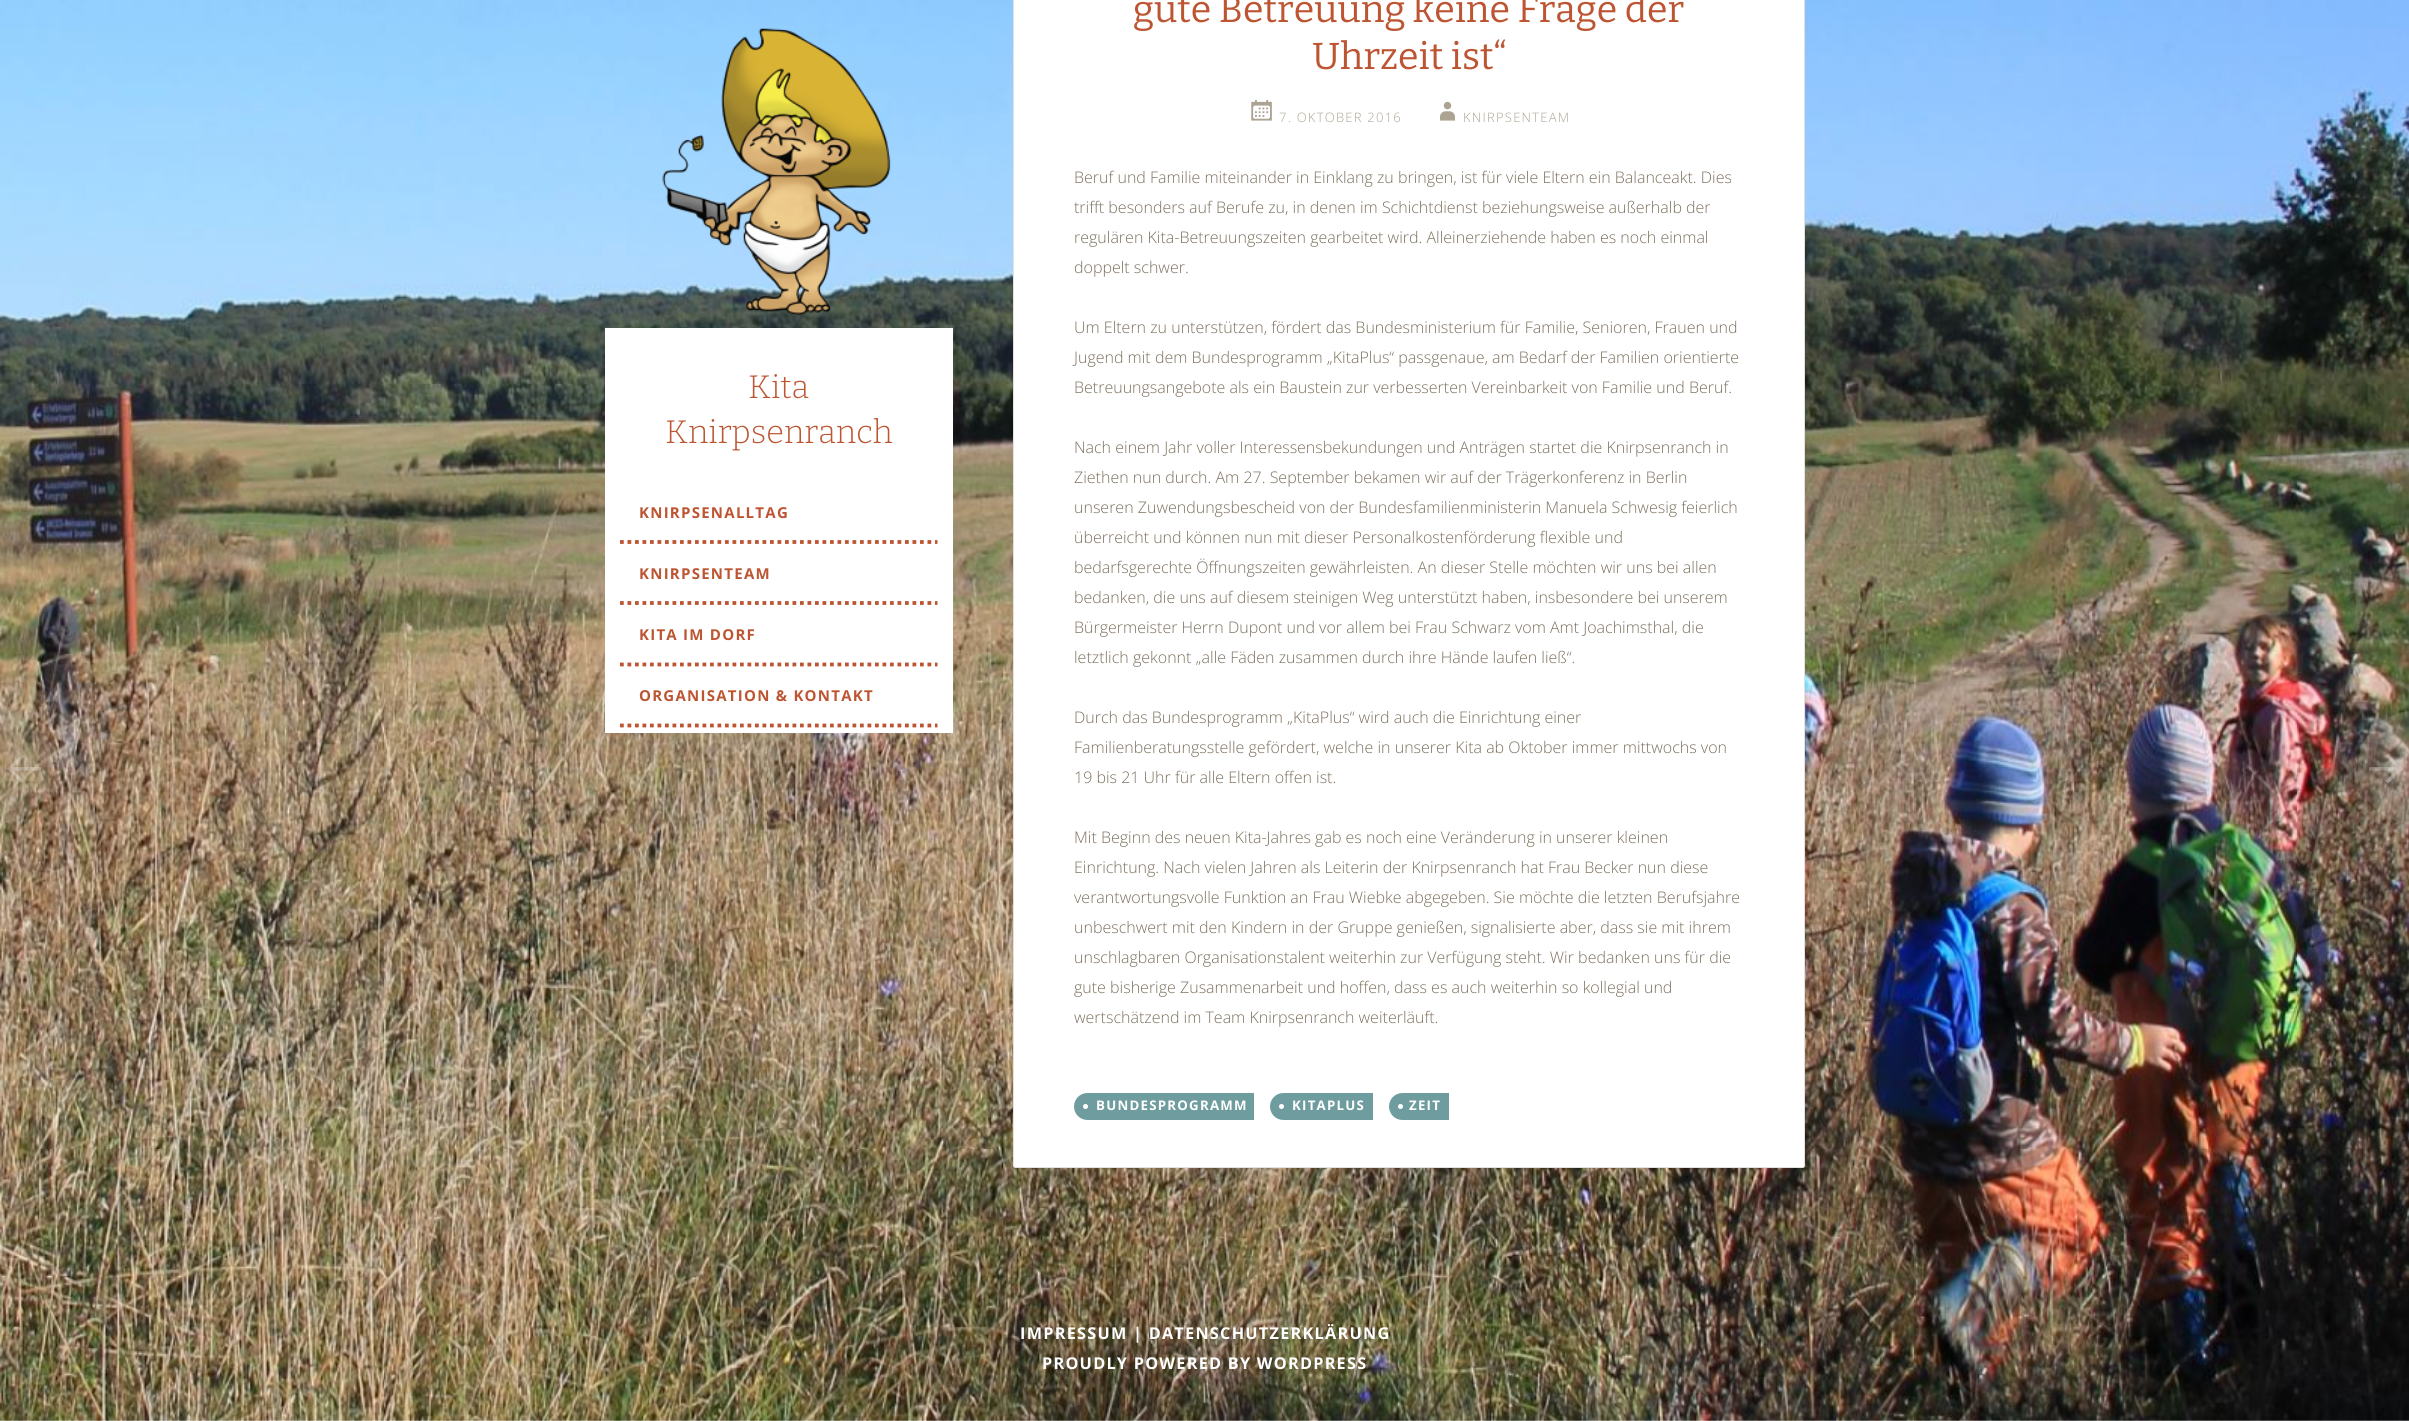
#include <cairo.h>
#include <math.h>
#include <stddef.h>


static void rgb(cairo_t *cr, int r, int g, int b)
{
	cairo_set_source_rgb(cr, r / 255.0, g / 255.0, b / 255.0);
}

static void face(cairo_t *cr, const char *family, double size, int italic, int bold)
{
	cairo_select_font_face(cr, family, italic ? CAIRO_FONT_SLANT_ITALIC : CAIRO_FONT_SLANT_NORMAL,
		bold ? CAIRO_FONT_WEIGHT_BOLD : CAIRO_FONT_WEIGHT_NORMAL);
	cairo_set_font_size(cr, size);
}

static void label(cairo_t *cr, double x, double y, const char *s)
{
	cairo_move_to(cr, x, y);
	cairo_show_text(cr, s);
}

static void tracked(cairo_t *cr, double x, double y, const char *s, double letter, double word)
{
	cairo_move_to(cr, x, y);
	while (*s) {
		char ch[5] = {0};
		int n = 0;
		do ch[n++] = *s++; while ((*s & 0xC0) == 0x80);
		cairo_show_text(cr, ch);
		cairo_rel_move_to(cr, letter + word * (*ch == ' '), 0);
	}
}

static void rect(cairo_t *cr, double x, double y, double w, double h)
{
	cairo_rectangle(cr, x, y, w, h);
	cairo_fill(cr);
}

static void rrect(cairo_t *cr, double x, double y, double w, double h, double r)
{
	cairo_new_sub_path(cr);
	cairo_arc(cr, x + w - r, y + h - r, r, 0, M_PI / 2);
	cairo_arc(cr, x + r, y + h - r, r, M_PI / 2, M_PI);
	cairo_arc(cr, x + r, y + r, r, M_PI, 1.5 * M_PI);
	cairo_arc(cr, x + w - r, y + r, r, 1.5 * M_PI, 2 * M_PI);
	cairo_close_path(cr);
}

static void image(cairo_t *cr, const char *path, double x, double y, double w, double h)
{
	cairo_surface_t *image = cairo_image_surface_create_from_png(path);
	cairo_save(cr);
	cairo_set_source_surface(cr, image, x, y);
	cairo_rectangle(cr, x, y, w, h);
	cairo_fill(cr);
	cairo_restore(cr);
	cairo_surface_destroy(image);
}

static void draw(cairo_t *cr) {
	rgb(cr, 255, 255, 255);
	cairo_paint(cr);
	image(cr, "image0.png", 0, 0, 2409, 1421);
	image(cr, "image1.png", 662, 28, 229, 288);
	rgb(cr, 255, 255, 255);
	rect(cr, 605, 328, 348, 405);
	face(cr, "Bitter Light", 32.5, 0, 0);
	rgb(cr, 189, 85, 50);
	label(cr, 748, 398, "Kita");
	label(cr, 665, 443, "Knirpsenranch");
	cairo_new_path(cr);
	cairo_move_to(cr, 620, 542);
	cairo_line_to(cr, 937.5, 542);
	cairo_set_line_width(cr, 3.8);
	cairo_set_dash(cr, (double[]){3.75, 3.75}, 2, 0);
	cairo_stroke(cr);
	face(cr, "Open Sans", 15, 0, 1);
	tracked(cr, 639, 518, "KNIRPSENALLTAG", 1.25, 0);
	cairo_new_path(cr);
	cairo_move_to(cr, 620, 603);
	cairo_line_to(cr, 937.5, 603);
	cairo_stroke(cr);
	tracked(cr, 639, 579, "KNIRPSENTEAM", 1.25, 0);
	cairo_new_path(cr);
	cairo_move_to(cr, 620, 664.5);
	cairo_line_to(cr, 937.5, 664.5);
	cairo_stroke(cr);
	tracked(cr, 639, 640, "KITA IM DORF", 1.25, 0);
	cairo_new_path(cr);
	cairo_move_to(cr, 620, 725.5);
	cairo_line_to(cr, 937.5, 725.5);
	cairo_stroke(cr);
	tracked(cr, 639, 701, "ORGANISATION & KONTAKT", 1.25, 0);
	rgb(cr, 255, 255, 255);
	rrect(cr, 1013.5, -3.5, 791, 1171, 2);
	cairo_fill_preserve(cr);
	rgb(cr, 228, 225, 220);
	cairo_set_line_width(cr, 1);
	cairo_set_dash(cr, NULL, 0, 0);
	cairo_stroke(cr);
	face(cr, "Bitter", 37.5, 0, 0);
	rgb(cr, 189, 85, 50);
	label(cr, 1133, 22, "gute Betreuung keine Frage der");
	label(cr, 1312, 69, "Uhrzeit ist“");
	image(cr, "image2.png", 1251, 100, 21, 21);
	face(cr, "Open Sans Light", 13, 0, 0);
	rgb(cr, 173, 163, 147);
	tracked(cr, 1279, 122, "7. OKTOBER 2016", 1.25, 0);
	image(cr, "image3.png", 1440, 101, 15, 20);
	tracked(cr, 1463, 122, "KNIRPSENTEAM", 1.25, 0);
	face(cr, "Open Sans Light", 16, 0, 0);
	rgb(cr, 124, 112, 94);
	label(cr, 1074, 183, "Beruf und Familie miteinander in Einklang zu bringen, ist für viele Eltern ein Balanceakt. Dies");
	label(cr, 1074, 213, "trifft besonders auf Berufe zu, in denen im Schichtdienst beziehungsweise außerhalb der");
	label(cr, 1074, 243, "regulären Kita-Betreuungszeiten gearbeitet wird. Alleinerziehende haben es noch einmal");
	label(cr, 1074, 273, "doppelt schwer.");
	label(cr, 1074, 333, "Um Eltern zu unterstützen, fördert das Bundesministerium für Familie, Senioren, Frauen und");
	label(cr, 1074, 363, "Jugend mit dem Bundesprogramm „KitaPlus“ passgenaue, am Bedarf der Familien orientierte");
	label(cr, 1074, 393, "Betreuungsangebote als ein Baustein zur verbesserten Vereinbarkeit von Familie und Beruf.");
	label(cr, 1074, 453, "Nach einem Jahr voller Interessensbekundungen und Anträgen startet die Knirpsenranch in");
	label(cr, 1074, 483, "Ziethen nun durch. Am 27. September bekamen wir auf der Trägerkonferenz in Berlin");
	label(cr, 1074, 513, "unseren Zuwendungsbescheid von der Bundesfamilienministerin Manuela Schwesig feierlich");
	label(cr, 1074, 543, "überreicht und können nun mit dieser Personalkostenförderung flexible und");
	label(cr, 1074, 573, "bedarfsgerechte Öffnungszeiten gewährleisten. An dieser Stelle möchten wir uns bei allen");
	label(cr, 1074, 603, "bedanken, die uns auf diesem steinigen Weg unterstützt haben, insbesondere bei unserem");
	label(cr, 1074, 633, "Bürgermeister Herrn Dupont und vor allem bei Frau Schwarz vom Amt Joachimsthal, die");
	label(cr, 1074, 663, "letztlich gekonnt „alle Fäden zusammen durch ihre Hände laufen ließ“.");
	label(cr, 1074, 723, "Durch das Bundesprogramm „KitaPlus“ wird auch die Einrichtung einer");
	label(cr, 1074, 753, "Familienberatungsstelle gefördert, welche in unserer Kita ab Oktober immer mittwochs von");
	label(cr, 1074, 783, "19 bis 21 Uhr für alle Eltern offen ist.");
	label(cr, 1074, 843, "Mit Beginn des neuen Kita-Jahres gab es noch eine Veränderung in unserer kleinen");
	label(cr, 1074, 873, "Einrichtung. Nach vielen Jahren als Leiterin der Knirpsenranch hat Frau Becker nun diese");
	label(cr, 1074, 903, "verantwortungsvolle Funktion an Frau Wiebke abgegeben. Sie möchte die letzten Berufsjahre");
	label(cr, 1074, 933, "unbeschwert mit den Kindern in der Gruppe genießen, signalisierte aber, dass sie mit ihrem");
	label(cr, 1074, 963, "unschlagbaren Organisationstalent weiterhin zur Verfügung steht. Wir bedanken uns für die");
	label(cr, 1074, 993, "gute bisherige Zusammenarbeit und hoffen, dass es auch weiterhin so kollegial und");
	label(cr, 1074, 1023, "wertschätzend im Team Knirpsenranch weiterläuft.");
	rgb(cr, 111, 157, 159);
	rect(cr, 1088, 1093, 166, 27);
	cairo_new_path(cr);
	cairo_move_to(cr, 1087.5, 1093);
	cairo_line_to(cr, 1088, 1093);
	cairo_line_to(cr, 1088, 1120);
	cairo_line_to(cr, 1087.5, 1120);
	cairo_curve_to(cr, 1080, 1120, 1074, 1114, 1074, 1106.5);
	cairo_curve_to(cr, 1074, 1099, 1080, 1093, 1087.5, 1093);
	cairo_close_path(cr);
	cairo_fill(cr);
	face(cr, "Open Sans", 13.25, 0, 1);
	rgb(cr, 255, 255, 255);
	tracked(cr, 1096, 1110, "BUNDESPROGRAMM", 1.25, 0);
	cairo_new_path(cr);
	cairo_arc(cr, 1085.5, 1106.5, 2.5, 0, 2 * M_PI);
	cairo_fill(cr);
	rgb(cr, 111, 157, 159);
	rect(cr, 1284, 1093, 89, 27);
	cairo_new_path(cr);
	cairo_move_to(cr, 1283.5, 1093);
	cairo_line_to(cr, 1284, 1093);
	cairo_line_to(cr, 1284, 1120);
	cairo_line_to(cr, 1283.5, 1120);
	cairo_curve_to(cr, 1276, 1120, 1270, 1114, 1270, 1106.5);
	cairo_curve_to(cr, 1270, 1099, 1276, 1093, 1283.5, 1093);
	cairo_close_path(cr);
	cairo_fill(cr);
	rgb(cr, 255, 255, 255);
	tracked(cr, 1292, 1110, "KITAPLUS", 1.25, 0);
	cairo_new_path(cr);
	cairo_arc(cr, 1281.5, 1106.5, 2.5, 0, 2 * M_PI);
	cairo_fill(cr);
	rgb(cr, 111, 157, 159);
	rect(cr, 1403, 1093, 46, 27);
	cairo_new_path(cr);
	cairo_move_to(cr, 1402.5, 1093);
	cairo_line_to(cr, 1403, 1093);
	cairo_line_to(cr, 1403, 1120);
	cairo_line_to(cr, 1402.5, 1120);
	cairo_curve_to(cr, 1395, 1120, 1389, 1114, 1389, 1106.5);
	cairo_curve_to(cr, 1389, 1099, 1395, 1093, 1402.5, 1093);
	cairo_close_path(cr);
	cairo_fill(cr);
	rgb(cr, 255, 255, 255);
	tracked(cr, 1409, 1110, "ZEIT", 1.25, 0);
	cairo_new_path(cr);
	cairo_arc(cr, 1400.5, 1106.5, 2.5, 0, 2 * M_PI);
	cairo_fill(cr);
	cairo_set_source_rgba(cr, 0.678, 0.639, 0.576, 0.25);
	rrect(cr, -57, 711, 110, 113, 56.5);
	cairo_fill(cr);
	cairo_set_source_rgba(cr, 1, 1, 1, 0.25);
	cairo_new_path(cr);
	cairo_move_to(cr, 22, 754);
	cairo_line_to(cr, 24.5, 756.5);
	cairo_line_to(cr, 14, 767);
	cairo_line_to(cr, 41, 767);
	cairo_line_to(cr, 41, 770.5);
	cairo_line_to(cr, 14, 770.5);
	cairo_line_to(cr, 24.5, 781);
	cairo_line_to(cr, 22, 783.5);
	cairo_line_to(cr, 7, 769);
	cairo_close_path(cr);
	cairo_fill(cr);
	cairo_set_source_rgba(cr, 0.678, 0.639, 0.576, 0.25);
	rrect(cr, 2358, 711, 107, 113, 56);
	cairo_fill(cr);
	cairo_set_source_rgba(cr, 1, 1, 1, 0.25);
	cairo_new_path(cr);
	cairo_move_to(cr, 2388, 754);
	cairo_line_to(cr, 2403, 769);
	cairo_line_to(cr, 2388, 783.5);
	cairo_line_to(cr, 2385.5, 781);
	cairo_line_to(cr, 2396, 770.5);
	cairo_line_to(cr, 2369, 770.5);
	cairo_line_to(cr, 2369, 767);
	cairo_line_to(cr, 2396, 767);
	cairo_line_to(cr, 2385.5, 756.5);
	cairo_close_path(cr);
	cairo_fill(cr);
	face(cr, "Open Sans", 16.25, 0, 1);
	rgb(cr, 255, 255, 255);
	tracked(cr, 1020, 1339, "IMPRESSUM | DATENSCHUTZERKLÄRUNG", 1.25, 0);
	tracked(cr, 1042, 1369, "PROUDLY POWERED BY WORDPRESS", 1.25, 0);
	rgb(cr, 173, 163, 147);
	tracked(cr, 1200, 1399, "|", 1.25, 0);
}

int main(void) {
	cairo_surface_t *surface = cairo_image_surface_create(CAIRO_FORMAT_RGB24, 2409, 1421);
	cairo_t *cr = cairo_create(surface);
	cairo_font_options_t *options = cairo_font_options_create();
	cairo_font_options_set_hint_metrics(options, CAIRO_HINT_METRICS_OFF);
	cairo_font_options_set_hint_style(options, CAIRO_HINT_STYLE_NONE);
	cairo_set_font_options(cr, options);
	cairo_set_miter_limit(cr, 4);
	draw(cr);
	cairo_surface_write_to_png(surface, "render.png");
	cairo_font_options_destroy(options);
	cairo_destroy(cr);
	cairo_surface_destroy(surface);
	return 0;
}
